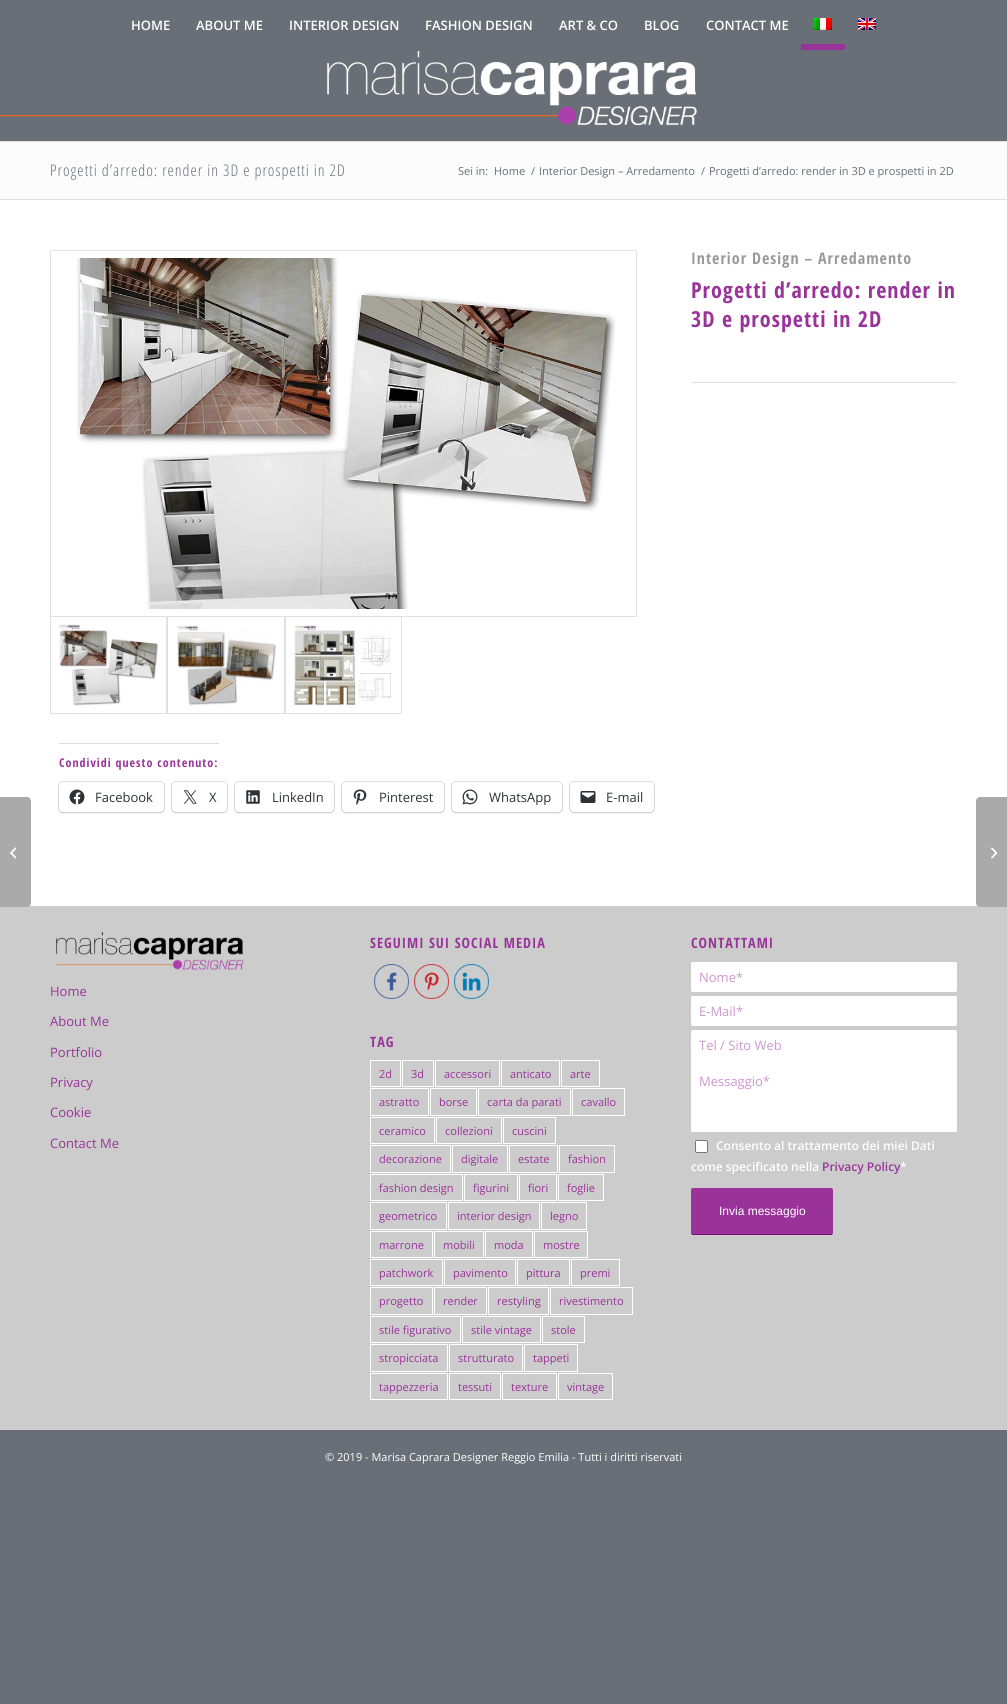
#include <cairo.h>
#include <math.h>
#include <stddef.h>


static void rgb(cairo_t *cr, int r, int g, int b)
{
	cairo_set_source_rgb(cr, r / 255.0, g / 255.0, b / 255.0);
}

static void face(cairo_t *cr, const char *family, double size, int italic, int bold)
{
	cairo_select_font_face(cr, family, italic ? CAIRO_FONT_SLANT_ITALIC : CAIRO_FONT_SLANT_NORMAL,
		bold ? CAIRO_FONT_WEIGHT_BOLD : CAIRO_FONT_WEIGHT_NORMAL);
	cairo_set_font_size(cr, size);
}

static void label(cairo_t *cr, double x, double y, const char *s)
{
	cairo_move_to(cr, x, y);
	cairo_show_text(cr, s);
}

static void tracked(cairo_t *cr, double x, double y, const char *s, double letter, double word)
{
	cairo_move_to(cr, x, y);
	while (*s) {
		char ch[5] = {0};
		int n = 0;
		do ch[n++] = *s++; while ((*s & 0xC0) == 0x80);
		cairo_show_text(cr, ch);
		cairo_rel_move_to(cr, letter + word * (*ch == ' '), 0);
	}
}

static void rect(cairo_t *cr, double x, double y, double w, double h)
{
	cairo_rectangle(cr, x, y, w, h);
	cairo_fill(cr);
}

static void rrect(cairo_t *cr, double x, double y, double w, double h, double r)
{
	cairo_new_sub_path(cr);
	cairo_arc(cr, x + w - r, y + h - r, r, 0, M_PI / 2);
	cairo_arc(cr, x + r, y + h - r, r, M_PI / 2, M_PI);
	cairo_arc(cr, x + r, y + r, r, M_PI, 1.5 * M_PI);
	cairo_arc(cr, x + w - r, y + r, r, 1.5 * M_PI, 2 * M_PI);
	cairo_close_path(cr);
}

static void soft_shadow(cairo_t *cr, double x, double y, double w, double h, double r, double blur, double alpha)
{
	cairo_push_group_with_content(cr, CAIRO_CONTENT_ALPHA);
	cairo_set_operator(cr, CAIRO_OPERATOR_SOURCE);
	for (int i = 15; i >= -15 && fmin(w, h) + blur * i / 3 > 0; i -= 2) {
		double e = blur * i / 6;
		cairo_set_source_rgba(cr, 0, 0, 0, alpha * erfc((i - 1) / 8.5) / 2);
		rrect(cr, x - e, y - e, w + 2 * e, h + 2 * e, fmax(0, fmin(r + e + blur * .6, fmin(w, h) / 2 + e)));
		cairo_fill(cr);
	}
	cairo_pattern_t *soft = cairo_pop_group(cr);
	cairo_mask(cr, soft);
	cairo_pattern_destroy(soft);
}

static void image(cairo_t *cr, const char *path, double x, double y, double w, double h)
{
	cairo_surface_t *image = cairo_image_surface_create_from_png(path);
	cairo_save(cr);
	cairo_set_source_surface(cr, image, x, y);
	cairo_rectangle(cr, x, y, w, h);
	cairo_fill(cr);
	cairo_restore(cr);
	cairo_surface_destroy(image);
}

static void draw(cairo_t *cr) {
	rgb(cr, 104, 111, 119);
	cairo_paint(cr);
	face(cr, "Open Sans SemiBold", 13, 0, 0);
	rgb(cr, 255, 255, 255);
	label(cr, 131, 30, "HOME");
	label(cr, 196, 30, "ABOUT ME");
	label(cr, 289, 30, "INTERIOR DESIGN");
	label(cr, 425, 30, "FASHION DESIGN");
	label(cr, 559, 30, "ART & CO");
	label(cr, 644, 30, "BLOG");
	label(cr, 706, 30, "CONTACT ME");
	image(cr, "image0.png", 814, 18, 18, 12);
	rgb(cr, 153, 51, 153);
	rect(cr, 801, 44, 44, 6);
	image(cr, "image1.png", 858, 18, 18, 12);
	rgb(cr, 255, 255, 255);
	rect(cr, 0, 200, 1007, 705);
	rgb(cr, 204, 204, 204);
	rect(cr, 0, 906, 1007, 524);
	rgb(cr, 255, 255, 255);
	rect(cr, 29, 905, 949, 1);
	rgb(cr, 170, 170, 170);
	cairo_new_path(cr);
	cairo_move_to(cr, 0, 797);
	cairo_line_to(cr, 27, 797);
	cairo_curve_to(cr, 29, 797, 31, 799, 31, 801);
	cairo_line_to(cr, 31, 903);
	cairo_curve_to(cr, 31, 905, 29, 907, 27, 907);
	cairo_line_to(cr, 0, 907);
	cairo_close_path(cr);
	cairo_fill(cr);
	image(cr, "image2.png", 10, 847, 6, 12);
	image(cr, "image3.png", 0, 51, 697, 75);
	rgb(cr, 252, 252, 252);
	rect(cr, 0, 142, 1007, 57);
	rgb(cr, 225, 225, 225);
	rect(cr, 0, 141, 1007, 1);
	face(cr, "Open Sans Condensed Light", 16, 0, 0);
	rgb(cr, 104, 111, 119);
	tracked(cr, 50, 176, "Progetti d’arredo: render in 3D e prospetti in 2D", 1, 0);
	face(cr, "Open Sans", 11, 0, 0);
	label(cr, 458, 175, "Sei in:");
	label(cr, 494, 175, "Home");
	label(cr, 531, 175, "/");
	label(cr, 539, 175, "Interior Design – Arredamento");
	label(cr, 701, 175, "/");
	label(cr, 709, 175, "Progetti d’arredo: render in 3D e prospetti in 2D");
	rgb(cr, 225, 225, 225);
	rect(cr, 0, 199, 1007, 1);
	cairo_new_path(cr);
	cairo_move_to(cr, 52, 250.5);
	cairo_line_to(cr, 635, 250.5);
	cairo_curve_to(cr, 636, 250.5, 636.5, 251, 636.5, 252);
	cairo_line_to(cr, 636.5, 616.5);
	cairo_line_to(cr, 50.5, 616.5);
	cairo_line_to(cr, 50.5, 252);
	cairo_curve_to(cr, 50.5, 251, 51, 250.5, 52, 250.5);
	cairo_close_path(cr);
	cairo_set_line_width(cr, 1);
	cairo_stroke(cr);
	image(cr, "image4.png", 76, 258, 540, 351);
	cairo_rectangle(cr, 50.5, 616.5, 116, 97);
	cairo_stroke(cr);
	image(cr, "image5.png", 59, 624, 100, 82);
	cairo_rectangle(cr, 167.5, 616.5, 117, 97);
	cairo_stroke(cr);
	image(cr, "image6.png", 177, 626, 100, 80);
	cairo_rectangle(cr, 285.5, 616.5, 116, 97);
	cairo_stroke(cr);
	image(cr, "image7.png", 293, 625, 98, 81);
	face(cr, "Open Sans Condensed", 16, 0, 1);
	rgb(cr, 153, 153, 153);
	tracked(cr, 691, 264, "Interior Design – Arredamento", 1, 0);
	face(cr, "Open Sans Condensed", 22, 0, 1);
	rgb(cr, 153, 51, 153);
	tracked(cr, 691, 298, "Progetti d’arredo: render in", 1, 0);
	tracked(cr, 691, 327, "3D e prospetti in 2D", 1, 0);
	rgb(cr, 225, 225, 225);
	rect(cr, 691, 382, 266, 1);
	rgb(cr, 220, 220, 222);
	rect(cr, 59, 743, 160, 1);
	face(cr, "Open Sans Condensed", 12, 0, 1);
	rgb(cr, 153, 51, 153);
	tracked(cr, 59, 767, "Condividi questo contenuto:", 1, 0);
	rrect(cr, 58.5, 781.5, 106, 31, 4.5);
	rgb(cr, 224, 224, 224);
	cairo_stroke(cr);
	rgb(cr, 0, 0, 0);
	soft_shadow(cr, 59, 783, 105, 30, 4, 1, 0.12);
	rgb(cr, 255, 255, 255);
	rrect(cr, 59, 782, 105, 30, 4);
	cairo_fill(cr);
	image(cr, "image8.png", 69, 789, 16, 16);
	face(cr, "Open Sans", 13, 0, 0);
	rgb(cr, 44, 51, 56);
	label(cr, 95, 802, "Facebook");
	rrect(cr, 171.5, 781.5, 56, 31, 4.5);
	rgb(cr, 224, 224, 224);
	cairo_stroke(cr);
	rgb(cr, 0, 0, 0);
	soft_shadow(cr, 172, 783, 55, 30, 4, 1, 0.12);
	rgb(cr, 255, 255, 255);
	rrect(cr, 172, 782, 55, 30, 4);
	cairo_fill(cr);
	image(cr, "image9.png", 183, 790, 14, 14);
	rgb(cr, 44, 51, 56);
	label(cr, 209, 802, "X");
	rrect(cr, 234.5, 781.5, 100, 31, 4.5);
	rgb(cr, 224, 224, 224);
	cairo_stroke(cr);
	rgb(cr, 0, 0, 0);
	soft_shadow(cr, 235, 783, 99, 30, 4, 1, 0.12);
	rgb(cr, 255, 255, 255);
	rrect(cr, 235, 782, 99, 30, 4);
	cairo_fill(cr);
	image(cr, "image10.png", 246, 790, 14, 14);
	rgb(cr, 44, 51, 56);
	label(cr, 272, 802, "LinkedIn");
	rrect(cr, 341.5, 781.5, 103, 31, 4.5);
	rgb(cr, 224, 224, 224);
	cairo_stroke(cr);
	rgb(cr, 0, 0, 0);
	soft_shadow(cr, 342, 783, 102, 30, 4, 1, 0.12);
	rgb(cr, 255, 255, 255);
	rrect(cr, 342, 782, 102, 30, 4);
	cairo_fill(cr);
	image(cr, "image11.png", 353, 789, 14, 16);
	rgb(cr, 44, 51, 56);
	label(cr, 379, 802, "Pinterest");
	rrect(cr, 451.5, 781.5, 111, 31, 4.5);
	rgb(cr, 224, 224, 224);
	cairo_stroke(cr);
	rgb(cr, 0, 0, 0);
	soft_shadow(cr, 452, 783, 110, 30, 4, 1, 0.12);
	rgb(cr, 255, 255, 255);
	rrect(cr, 452, 782, 110, 30, 4);
	cairo_fill(cr);
	image(cr, "image12.png", 462, 789, 16, 16);
	rgb(cr, 44, 51, 56);
	label(cr, 489, 802, "WhatsApp");
	rrect(cr, 569.5, 781.5, 85, 31, 4.5);
	rgb(cr, 224, 224, 224);
	cairo_stroke(cr);
	rgb(cr, 0, 0, 0);
	soft_shadow(cr, 570, 783, 84, 30, 4, 1, 0.12);
	rgb(cr, 255, 255, 255);
	rrect(cr, 570, 782, 84, 30, 4);
	cairo_fill(cr);
	image(cr, "image13.png", 580, 791, 16, 12);
	rgb(cr, 44, 51, 56);
	label(cr, 606, 802, "E-mail");
	image(cr, "image14.png", 56, 931, 188, 39);
	rgb(cr, 153, 51, 153);
	label(cr, 50, 996, "Home");
	label(cr, 50, 1026, "About Me");
	label(cr, 50, 1057, "Portfolio");
	label(cr, 50, 1087, "Privacy");
	label(cr, 50, 1117, "Cookie");
	label(cr, 50, 1148, "Contact Me");
	face(cr, "Open Sans Condensed", 14.25, 0, 1);
	tracked(cr, 370, 948, "SEGUIMI SUI SOCIAL MEDIA", 1, 0);
	image(cr, "image15.png", 374, 964, 35, 35);
	image(cr, "image16.png", 414, 964, 35, 35);
	image(cr, "image17.png", 454, 964, 35, 35);
	tracked(cr, 370, 1047, "TAG", 1, 0);
	cairo_rectangle(cr, 370.5, 1060.5, 30, 26);
	rgb(cr, 255, 255, 255);
	cairo_stroke(cr);
	face(cr, "Open Sans", 11, 0, 0);
	rgb(cr, 153, 51, 153);
	label(cr, 379, 1078, "2d");
	cairo_rectangle(cr, 402.5, 1060.5, 31, 26);
	rgb(cr, 255, 255, 255);
	cairo_stroke(cr);
	rgb(cr, 153, 51, 153);
	label(cr, 411, 1078, "3d");
	cairo_rectangle(cr, 435.5, 1060.5, 64, 26);
	rgb(cr, 255, 255, 255);
	cairo_stroke(cr);
	rgb(cr, 153, 51, 153);
	label(cr, 444, 1078, "accessori");
	cairo_rectangle(cr, 501.5, 1060.5, 58, 26);
	rgb(cr, 255, 255, 255);
	cairo_stroke(cr);
	rgb(cr, 153, 51, 153);
	label(cr, 510, 1078, "anticato");
	cairo_rectangle(cr, 561.5, 1060.5, 38, 26);
	rgb(cr, 255, 255, 255);
	cairo_stroke(cr);
	rgb(cr, 153, 51, 153);
	label(cr, 570, 1078, "arte");
	cairo_rectangle(cr, 370.5, 1088.5, 58, 27);
	rgb(cr, 255, 255, 255);
	cairo_stroke(cr);
	rgb(cr, 153, 51, 153);
	label(cr, 379, 1106, "astratto");
	cairo_rectangle(cr, 430.5, 1088.5, 46, 27);
	rgb(cr, 255, 255, 255);
	cairo_stroke(cr);
	rgb(cr, 153, 51, 153);
	label(cr, 439, 1106, "borse");
	cairo_rectangle(cr, 478.5, 1088.5, 92, 27);
	rgb(cr, 255, 255, 255);
	cairo_stroke(cr);
	rgb(cr, 153, 51, 153);
	label(cr, 487, 1106, "carta da parati");
	cairo_rectangle(cr, 572.5, 1088.5, 52, 27);
	rgb(cr, 255, 255, 255);
	cairo_stroke(cr);
	rgb(cr, 153, 51, 153);
	label(cr, 581, 1106, "cavallo");
	cairo_rectangle(cr, 370.5, 1117.5, 64, 26);
	rgb(cr, 255, 255, 255);
	cairo_stroke(cr);
	rgb(cr, 153, 51, 153);
	label(cr, 379, 1135, "ceramico");
	cairo_rectangle(cr, 436.5, 1117.5, 65, 26);
	rgb(cr, 255, 255, 255);
	cairo_stroke(cr);
	rgb(cr, 153, 51, 153);
	label(cr, 445, 1135, "collezioni");
	cairo_rectangle(cr, 503.5, 1117.5, 52, 26);
	rgb(cr, 255, 255, 255);
	cairo_stroke(cr);
	rgb(cr, 153, 51, 153);
	label(cr, 512, 1135, "cuscini");
	cairo_rectangle(cr, 370.5, 1145.5, 80, 27);
	rgb(cr, 255, 255, 255);
	cairo_stroke(cr);
	rgb(cr, 153, 51, 153);
	label(cr, 379, 1163, "decorazione");
	cairo_rectangle(cr, 452.5, 1145.5, 55, 27);
	rgb(cr, 255, 255, 255);
	cairo_stroke(cr);
	rgb(cr, 153, 51, 153);
	label(cr, 461, 1163, "digitale");
	cairo_rectangle(cr, 509.5, 1145.5, 48, 27);
	rgb(cr, 255, 255, 255);
	cairo_stroke(cr);
	rgb(cr, 153, 51, 153);
	label(cr, 518, 1163, "estate");
	cairo_rectangle(cr, 559.5, 1145.5, 55, 27);
	rgb(cr, 255, 255, 255);
	cairo_stroke(cr);
	rgb(cr, 153, 51, 153);
	label(cr, 568, 1163, "fashion");
	cairo_rectangle(cr, 370.5, 1174.5, 92, 26);
	rgb(cr, 255, 255, 255);
	cairo_stroke(cr);
	rgb(cr, 153, 51, 153);
	label(cr, 379, 1192, "fashion design");
	cairo_rectangle(cr, 464.5, 1174.5, 53, 26);
	rgb(cr, 255, 255, 255);
	cairo_stroke(cr);
	rgb(cr, 153, 51, 153);
	label(cr, 473, 1192, "figurini");
	cairo_rectangle(cr, 519.5, 1174.5, 37, 26);
	rgb(cr, 255, 255, 255);
	cairo_stroke(cr);
	rgb(cr, 153, 51, 153);
	label(cr, 528, 1192, "fiori");
	cairo_rectangle(cr, 558.5, 1174.5, 45, 26);
	rgb(cr, 255, 255, 255);
	cairo_stroke(cr);
	rgb(cr, 153, 51, 153);
	label(cr, 567, 1192, "foglie");
	cairo_rectangle(cr, 370.5, 1202.5, 76, 27);
	rgb(cr, 255, 255, 255);
	cairo_stroke(cr);
	rgb(cr, 153, 51, 153);
	label(cr, 379, 1220, "geometrico");
	cairo_rectangle(cr, 448.5, 1202.5, 91, 27);
	rgb(cr, 255, 255, 255);
	cairo_stroke(cr);
	rgb(cr, 153, 51, 153);
	label(cr, 457, 1220, "interior design");
	cairo_rectangle(cr, 541.5, 1202.5, 45, 27);
	rgb(cr, 255, 255, 255);
	cairo_stroke(cr);
	rgb(cr, 153, 51, 153);
	label(cr, 550, 1220, "legno");
	cairo_rectangle(cr, 370.5, 1231.5, 62, 26);
	rgb(cr, 255, 255, 255);
	cairo_stroke(cr);
	rgb(cr, 153, 51, 153);
	label(cr, 379, 1249, "marrone");
	cairo_rectangle(cr, 434.5, 1231.5, 49, 26);
	rgb(cr, 255, 255, 255);
	cairo_stroke(cr);
	rgb(cr, 153, 51, 153);
	label(cr, 443, 1249, "mobili");
	cairo_rectangle(cr, 485.5, 1231.5, 47, 26);
	rgb(cr, 255, 255, 255);
	cairo_stroke(cr);
	rgb(cr, 153, 51, 153);
	label(cr, 494, 1249, "moda");
	cairo_rectangle(cr, 534.5, 1231.5, 53, 26);
	rgb(cr, 255, 255, 255);
	cairo_stroke(cr);
	rgb(cr, 153, 51, 153);
	label(cr, 543, 1249, "mostre");
	cairo_rectangle(cr, 370.5, 1259.5, 72, 26);
	rgb(cr, 255, 255, 255);
	cairo_stroke(cr);
	rgb(cr, 153, 51, 153);
	label(cr, 379, 1277, "patchwork");
	cairo_rectangle(cr, 444.5, 1259.5, 71, 26);
	rgb(cr, 255, 255, 255);
	cairo_stroke(cr);
	rgb(cr, 153, 51, 153);
	label(cr, 453, 1277, "pavimento");
	cairo_rectangle(cr, 517.5, 1259.5, 52, 26);
	rgb(cr, 255, 255, 255);
	cairo_stroke(cr);
	rgb(cr, 153, 51, 153);
	label(cr, 526, 1277, "pittura");
	cairo_rectangle(cr, 571.5, 1259.5, 48, 26);
	rgb(cr, 255, 255, 255);
	cairo_stroke(cr);
	rgb(cr, 153, 51, 153);
	label(cr, 580, 1277, "premi");
	cairo_rectangle(cr, 370.5, 1287.5, 62, 27);
	rgb(cr, 255, 255, 255);
	cairo_stroke(cr);
	rgb(cr, 153, 51, 153);
	label(cr, 379, 1305, "progetto");
	cairo_rectangle(cr, 434.5, 1287.5, 52, 27);
	rgb(cr, 255, 255, 255);
	cairo_stroke(cr);
	rgb(cr, 153, 51, 153);
	label(cr, 443, 1305, "render");
	cairo_rectangle(cr, 488.5, 1287.5, 60, 27);
	rgb(cr, 255, 255, 255);
	cairo_stroke(cr);
	rgb(cr, 153, 51, 153);
	label(cr, 497, 1305, "restyling");
	cairo_rectangle(cr, 550.5, 1287.5, 82, 27);
	rgb(cr, 255, 255, 255);
	cairo_stroke(cr);
	rgb(cr, 153, 51, 153);
	label(cr, 559, 1305, "rivestimento");
	cairo_rectangle(cr, 370.5, 1316.5, 90, 26);
	rgb(cr, 255, 255, 255);
	cairo_stroke(cr);
	rgb(cr, 153, 51, 153);
	label(cr, 379, 1334, "stile figurativo");
	cairo_rectangle(cr, 462.5, 1316.5, 78, 26);
	rgb(cr, 255, 255, 255);
	cairo_stroke(cr);
	rgb(cr, 153, 51, 153);
	label(cr, 471, 1334, "stile vintage");
	cairo_rectangle(cr, 542.5, 1316.5, 42, 26);
	rgb(cr, 255, 255, 255);
	cairo_stroke(cr);
	rgb(cr, 153, 51, 153);
	label(cr, 551, 1334, "stole");
	cairo_rectangle(cr, 370.5, 1344.5, 77, 27);
	rgb(cr, 255, 255, 255);
	cairo_stroke(cr);
	rgb(cr, 153, 51, 153);
	label(cr, 379, 1362, "stropicciata");
	cairo_rectangle(cr, 449.5, 1344.5, 73, 27);
	rgb(cr, 255, 255, 255);
	cairo_stroke(cr);
	rgb(cr, 153, 51, 153);
	label(cr, 458, 1362, "strutturato");
	cairo_rectangle(cr, 524.5, 1344.5, 53, 27);
	rgb(cr, 255, 255, 255);
	cairo_stroke(cr);
	rgb(cr, 153, 51, 153);
	label(cr, 533, 1362, "tappeti");
	cairo_rectangle(cr, 370.5, 1373.5, 77, 26);
	rgb(cr, 255, 255, 255);
	cairo_stroke(cr);
	rgb(cr, 153, 51, 153);
	label(cr, 379, 1391, "tappezzeria");
	cairo_rectangle(cr, 449.5, 1373.5, 51, 26);
	rgb(cr, 255, 255, 255);
	cairo_stroke(cr);
	rgb(cr, 153, 51, 153);
	label(cr, 458, 1391, "tessuti");
	cairo_rectangle(cr, 502.5, 1373.5, 54, 26);
	rgb(cr, 255, 255, 255);
	cairo_stroke(cr);
	rgb(cr, 153, 51, 153);
	label(cr, 511, 1391, "texture");
	cairo_rectangle(cr, 558.5, 1373.5, 54, 26);
	rgb(cr, 255, 255, 255);
	cairo_stroke(cr);
	rgb(cr, 153, 51, 153);
	label(cr, 567, 1391, "vintage");
	face(cr, "Open Sans Condensed", 14.25, 0, 1);
	tracked(cr, 691, 948, "CONTATTAMI", 1, 0);
	rgb(cr, 255, 255, 255);
	rrect(cr, 691.5, 962.5, 265, 29, 1.5);
	cairo_fill_preserve(cr);
	cairo_stroke(cr);
	face(cr, "Open Sans", 13, 0, 0);
	rgb(cr, 204, 153, 204);
	label(cr, 699, 982, "Nome*");
	rgb(cr, 255, 255, 255);
	rrect(cr, 691.5, 996.5, 265, 29, 1.5);
	cairo_fill_preserve(cr);
	cairo_stroke(cr);
	rgb(cr, 204, 153, 204);
	label(cr, 699, 1016, "E-Mail*");
	rgb(cr, 255, 255, 255);
	rrect(cr, 691.5, 1030.5, 265, 29, 1.5);
	cairo_fill_preserve(cr);
	cairo_stroke(cr);
	rgb(cr, 204, 153, 204);
	label(cr, 699, 1050, "Tel / Sito Web");
	rgb(cr, 255, 255, 255);
	rect(cr, 691, 1059, 266, 73);
	rgb(cr, 204, 153, 204);
	label(cr, 699, 1086, "Messaggio*");
	face(cr, "Open Sans SemiBold", 12, 0, 0);
	rgb(cr, 255, 255, 255);
	label(cr, 716, 1150, "Consento al trattamento dei miei Dati");
	label(cr, 691, 1171, "come specificato nella");
	rgb(cr, 153, 51, 153);
	label(cr, 822, 1171, "Privacy Policy");
	rgb(cr, 255, 255, 255);
	label(cr, 900, 1171, "*");
	rrect(cr, 695.5, 1140.5, 12, 12, 1.5);
	cairo_fill_preserve(cr);
	rgb(cr, 118, 118, 118);
	cairo_stroke(cr);
	rgb(cr, 153, 51, 153);
	rrect(cr, 691, 1188, 142, 47, 2);
	cairo_fill(cr);
	rgb(cr, 119, 17, 119);
	rect(cr, 692, 1234, 140, 1);
	face(cr, "Liberation Sans", 12, 0, 0);
	rgb(cr, 255, 255, 255);
	label(cr, 719, 1215, "Invia messaggio");
	face(cr, "Open Sans", 11, 0, 0);
	label(cr, 325, 1461, "© 2019 - Marisa Caprara Designer Reggio Emilia - Tutti i diritti riservati");
	rgb(cr, 170, 170, 170);
	cairo_new_path(cr);
	cairo_move_to(cr, 980, 797);
	cairo_line_to(cr, 1007, 797);
	cairo_line_to(cr, 1007, 907);
	cairo_line_to(cr, 980, 907);
	cairo_curve_to(cr, 978, 907, 976, 905, 976, 903);
	cairo_line_to(cr, 976, 801);
	cairo_curve_to(cr, 976, 799, 978, 797, 980, 797);
	cairo_close_path(cr);
	cairo_fill(cr);
	image(cr, "image18.png", 991, 847, 6, 12);
}

int main(void) {
	cairo_surface_t *surface = cairo_image_surface_create(CAIRO_FORMAT_RGB24, 1007, 1704);
	cairo_t *cr = cairo_create(surface);
	cairo_font_options_t *options = cairo_font_options_create();
	cairo_font_options_set_hint_metrics(options, CAIRO_HINT_METRICS_OFF);
	cairo_font_options_set_hint_style(options, CAIRO_HINT_STYLE_NONE);
	cairo_set_font_options(cr, options);
	cairo_set_miter_limit(cr, 4);
	draw(cr);
	cairo_surface_write_to_png(surface, "render.png");
	cairo_font_options_destroy(options);
	cairo_destroy(cr);
	cairo_surface_destroy(surface);
	return 0;
}
